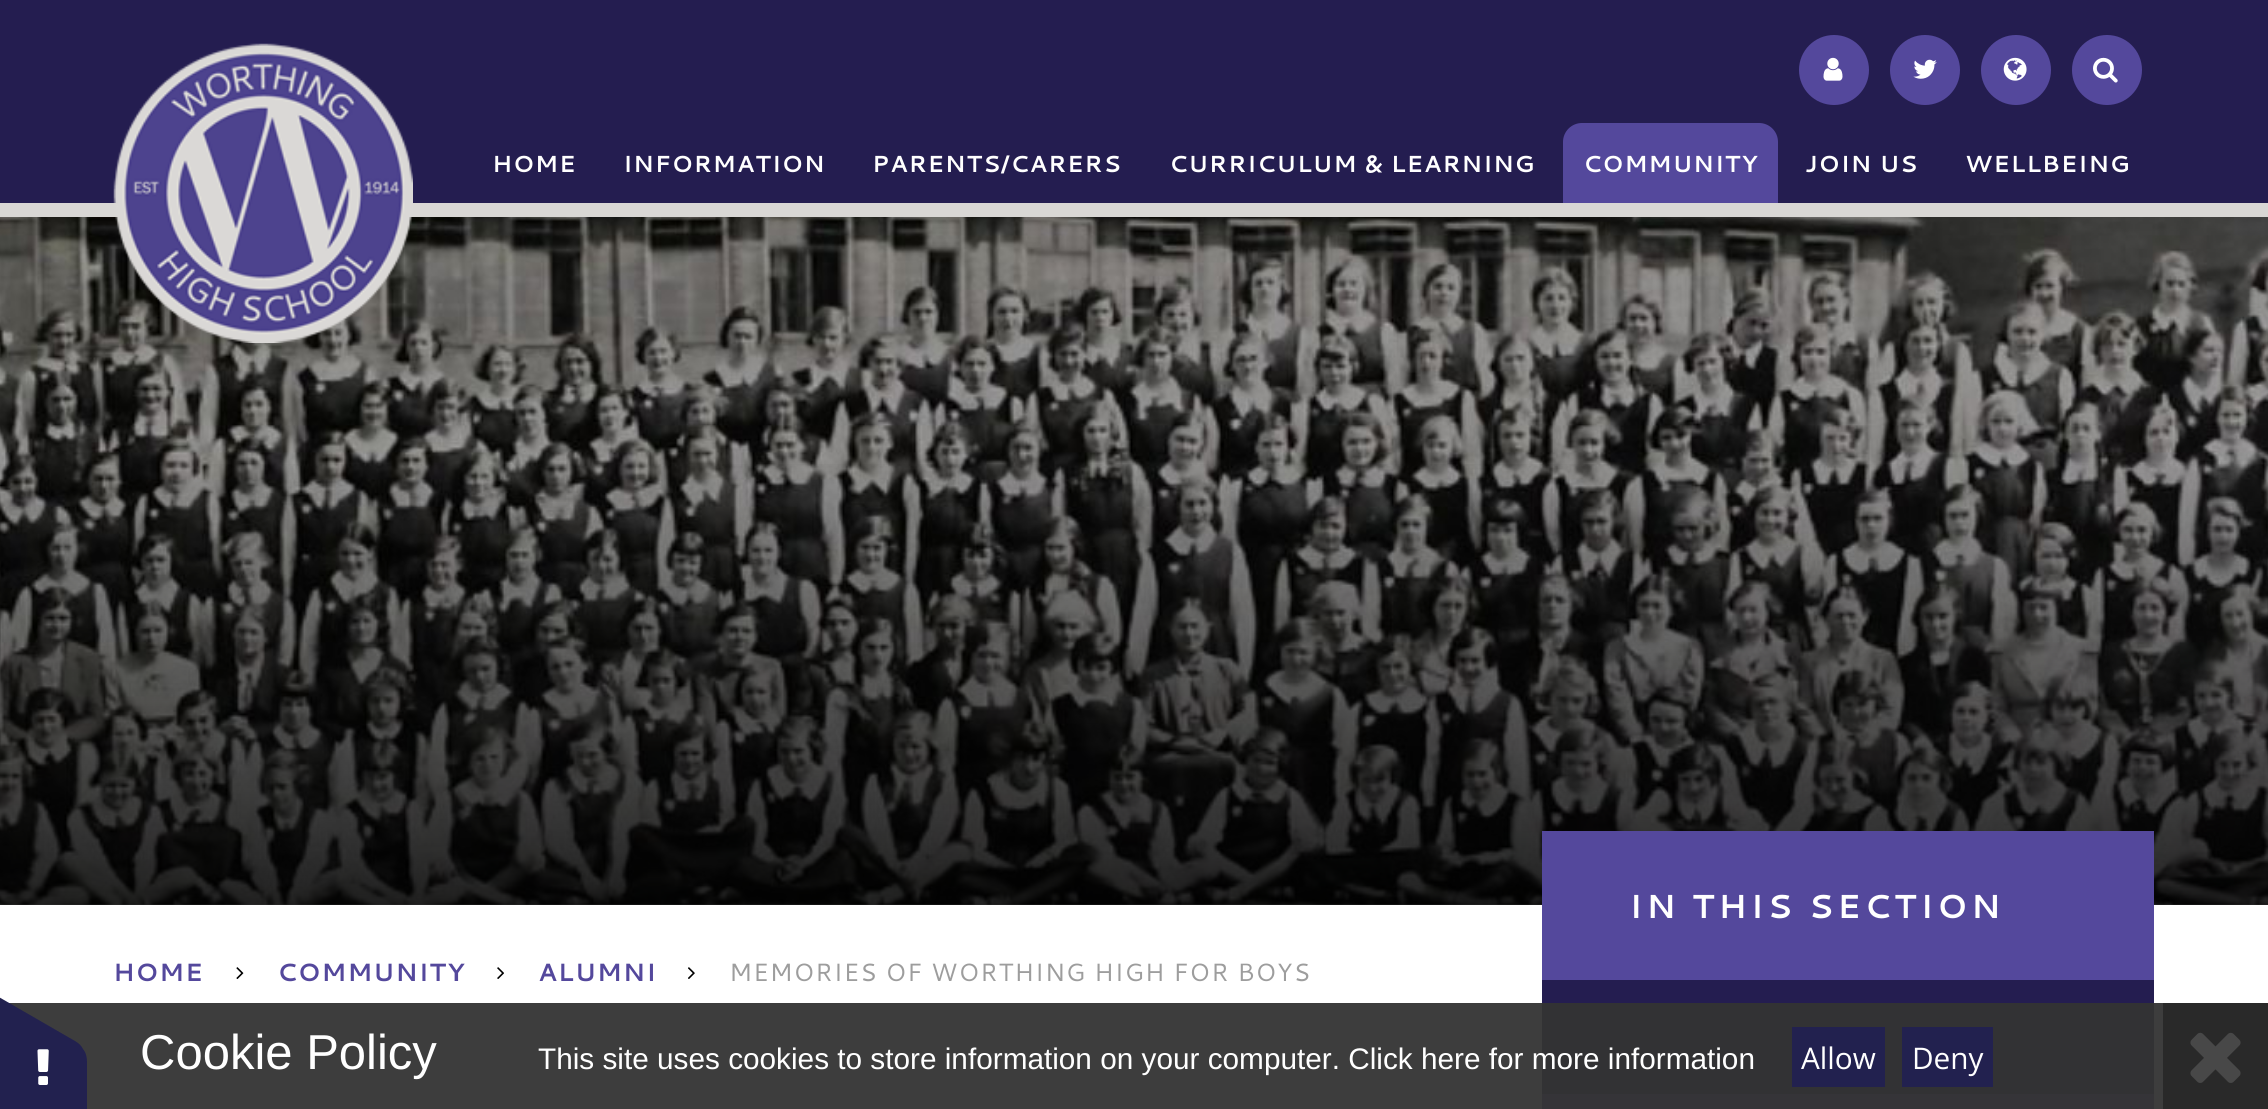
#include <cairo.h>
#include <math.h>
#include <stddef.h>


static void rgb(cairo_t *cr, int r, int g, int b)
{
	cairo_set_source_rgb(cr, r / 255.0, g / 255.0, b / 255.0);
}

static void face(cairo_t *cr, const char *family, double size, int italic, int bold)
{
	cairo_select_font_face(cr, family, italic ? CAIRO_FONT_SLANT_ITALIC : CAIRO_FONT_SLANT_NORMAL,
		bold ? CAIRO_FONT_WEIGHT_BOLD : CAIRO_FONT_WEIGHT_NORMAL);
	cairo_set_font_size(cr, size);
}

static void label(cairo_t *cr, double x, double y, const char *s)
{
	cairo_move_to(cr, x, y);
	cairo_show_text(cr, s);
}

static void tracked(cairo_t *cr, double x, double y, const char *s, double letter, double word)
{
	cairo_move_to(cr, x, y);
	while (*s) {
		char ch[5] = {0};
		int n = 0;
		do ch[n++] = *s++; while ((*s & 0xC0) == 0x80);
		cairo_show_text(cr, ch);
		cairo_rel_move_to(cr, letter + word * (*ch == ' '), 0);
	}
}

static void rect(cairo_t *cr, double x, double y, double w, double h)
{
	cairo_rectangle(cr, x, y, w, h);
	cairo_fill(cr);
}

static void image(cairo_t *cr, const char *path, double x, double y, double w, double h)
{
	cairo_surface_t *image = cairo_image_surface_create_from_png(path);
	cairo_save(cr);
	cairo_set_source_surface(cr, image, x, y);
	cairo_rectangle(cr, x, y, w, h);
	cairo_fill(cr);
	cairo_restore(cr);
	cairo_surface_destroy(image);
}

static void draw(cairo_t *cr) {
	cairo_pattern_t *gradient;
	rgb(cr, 255, 255, 255);
	cairo_paint(cr);
	rgb(cr, 61, 61, 61);
	rect(cr, 9, 1003, 2154, 106);
	rgb(cr, 217, 215, 213);
	rect(cr, 0, 203, 2268, 14);
	rgb(cr, 36, 29, 80);
	rect(cr, 0, 0, 2268, 203);
	image(cr, "image5.png", 0, 217, 2268, 688);
	image(cr, "image0.png", 113, 43, 300, 300);
	rgb(cr, 84, 72, 156);
	cairo_arc(cr, 1834, 70, 35, 0, 2 * M_PI);
	cairo_fill(cr);
	image(cr, "image1.png", 1823, 57, 20, 24);
	cairo_arc(cr, 1925, 70, 35, 0, 2 * M_PI);
	cairo_fill(cr);
	image(cr, "image2.png", 1913, 59, 24, 20);
	cairo_arc(cr, 2016, 70, 35, 0, 2 * M_PI);
	cairo_fill(cr);
	image(cr, "image3.png", 2003, 57, 24, 24);
	cairo_arc(cr, 2107, 70, 35, 0, 2 * M_PI);
	cairo_fill(cr);
	image(cr, "image4.png", 2093, 57, 25, 26);
	face(cr, "Cantarell", 23.25, 0, 1);
	rgb(cr, 255, 255, 255);
	tracked(cr, 492, 172, "HOME", 0.9, 0);
	tracked(cr, 623, 172, "INFORMATION", 0.9, 0);
	tracked(cr, 872, 172, "PARENTS/CARERS", 0.9, 0);
	tracked(cr, 1169, 172, "CURRICULUM & LEARNING", 0.9, 0);
	rgb(cr, 84, 72, 156);
	cairo_new_path(cr);
	cairo_move_to(cr, 1582, 123);
	cairo_line_to(cr, 1759, 123);
	cairo_curve_to(cr, 1769.5, 123, 1778, 131.5, 1778, 142);
	cairo_line_to(cr, 1778, 203);
	cairo_line_to(cr, 1563, 203);
	cairo_line_to(cr, 1563, 142);
	cairo_curve_to(cr, 1563, 131.5, 1571.5, 123, 1582, 123);
	cairo_close_path(cr);
	cairo_fill(cr);
	rgb(cr, 255, 255, 255);
	tracked(cr, 1583, 172, "COMMUNITY", 0.9, 0);
	tracked(cr, 1805, 172, "JOIN US", 0.9, 0);
	tracked(cr, 1965, 172, "WELLBEING", 0.9, 0);
	gradient = cairo_pattern_create_linear(1134, 451, 1134, 905);
	cairo_pattern_add_color_stop_rgba(gradient, 0, 0, 0, 0, 0);
	cairo_pattern_add_color_stop_rgba(gradient, 1, 0, 0, 0, 0.77);
	cairo_set_source(cr, gradient);
	cairo_pattern_destroy(gradient);
	rect(cr, 0, 464, 2268, 441);
	rgb(cr, 84, 72, 156);
	rect(cr, 1542, 831, 612, 149);
	face(cr, "Cantarell", 33.25, 0, 1);
	rgb(cr, 255, 255, 255);
	tracked(cr, 1629, 918, "IN THIS SECTION", 3.7, 0);
	rgb(cr, 36, 29, 80);
	rect(cr, 1542, 980, 612, 23);
	rgb(cr, 50, 50, 52);
	rect(cr, 1542, 1003, 612, 91);
	rgb(cr, 53, 52, 56);
	rect(cr, 1542, 1094, 612, 15);
	face(cr, "Cantarell", 24.95, 0, 1);
	rgb(cr, 84, 72, 156);
	tracked(cr, 113, 981, "HOME", 1, 0);
	image(cr, "image6.png", 236, 967, 8, 12);
	tracked(cr, 277, 981, "COMMUNITY", 1, 0);
	image(cr, "image7.png", 497, 967, 7, 12);
	tracked(cr, 538, 981, "ALUMNI", 1, 0);
	image(cr, "image8.png", 688, 967, 7, 12);
	face(cr, "Cantarell", 24.95, 0, 0);
	rgb(cr, 157, 157, 157);
	tracked(cr, 729, 981, "MEMORIES OF WORTHING HIGH FOR BOYS", 1, 0);
	rgb(cr, 34, 33, 79);
	cairo_new_path(cr);
	cairo_move_to(cr, 87, 1062);
	cairo_line_to(cr, 87, 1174);
	cairo_curve_to(cr, 87, 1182, 84, 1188, 80, 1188);
	cairo_line_to(cr, -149, 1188);
	cairo_curve_to(cr, -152, 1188, -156, 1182, -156, 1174);
	cairo_line_to(cr, -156, 1062);
	cairo_curve_to(cr, -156, 1054, -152, 1048, -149, 1048);
	cairo_line_to(cr, 80, 1048);
	cairo_curve_to(cr, 84, 1048, 87, 1054, 87, 1062);
	cairo_close_path(cr);
	cairo_fill(cr);
	cairo_new_path(cr);
	cairo_move_to(cr, -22, 985);
	cairo_line_to(cr, 75, 1041);
	cairo_curve_to(cr, 82, 1045, 85, 1051, 83, 1054);
	cairo_line_to(cr, -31, 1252);
	cairo_curve_to(cr, -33, 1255, -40, 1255, -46, 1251);
	cairo_line_to(cr, -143, 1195);
	cairo_curve_to(cr, -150, 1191, -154, 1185, -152, 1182);
	cairo_line_to(cr, -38, 984);
	cairo_curve_to(cr, -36, 981, -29, 981, -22, 985);
	cairo_close_path(cr);
	cairo_fill(cr);
	image(cr, "image9.png", 37, 1049, 12, 36);
	face(cr, "Liberation Sans", 49, 0, 0);
	rgb(cr, 255, 255, 255);
	label(cr, 140, 1069, "Cookie Policy");
	face(cr, "Liberation Sans", 29.75, 0, 0);
	label(cr, 538, 1069, "This site uses cookies to store information on your computer. Click here for more information");
	rgb(cr, 34, 33, 79);
	rect(cr, 1792, 1027, 93, 60);
	face(cr, "Open Sans", 29.75, 0, 0);
	rgb(cr, 255, 255, 255);
	label(cr, 1801, 1069, "Allow");
	rgb(cr, 34, 33, 79);
	rect(cr, 1902, 1027, 91, 60);
	rgb(cr, 255, 255, 255);
	label(cr, 1912, 1069, "Deny");
	rgb(cr, 41, 41, 41);
	rect(cr, 2163, 1003, 105, 106);
	image(cr, "image10.png", 2190, 1032, 51, 51);
}

int main(void) {
	cairo_surface_t *surface = cairo_image_surface_create(CAIRO_FORMAT_RGB24, 2268, 1109);
	cairo_t *cr = cairo_create(surface);
	cairo_font_options_t *options = cairo_font_options_create();
	cairo_font_options_set_hint_metrics(options, CAIRO_HINT_METRICS_OFF);
	cairo_font_options_set_hint_style(options, CAIRO_HINT_STYLE_NONE);
	cairo_set_font_options(cr, options);
	cairo_set_miter_limit(cr, 4);
	draw(cr);
	cairo_surface_write_to_png(surface, "render.png");
	cairo_font_options_destroy(options);
	cairo_destroy(cr);
	cairo_surface_destroy(surface);
	return 0;
}
